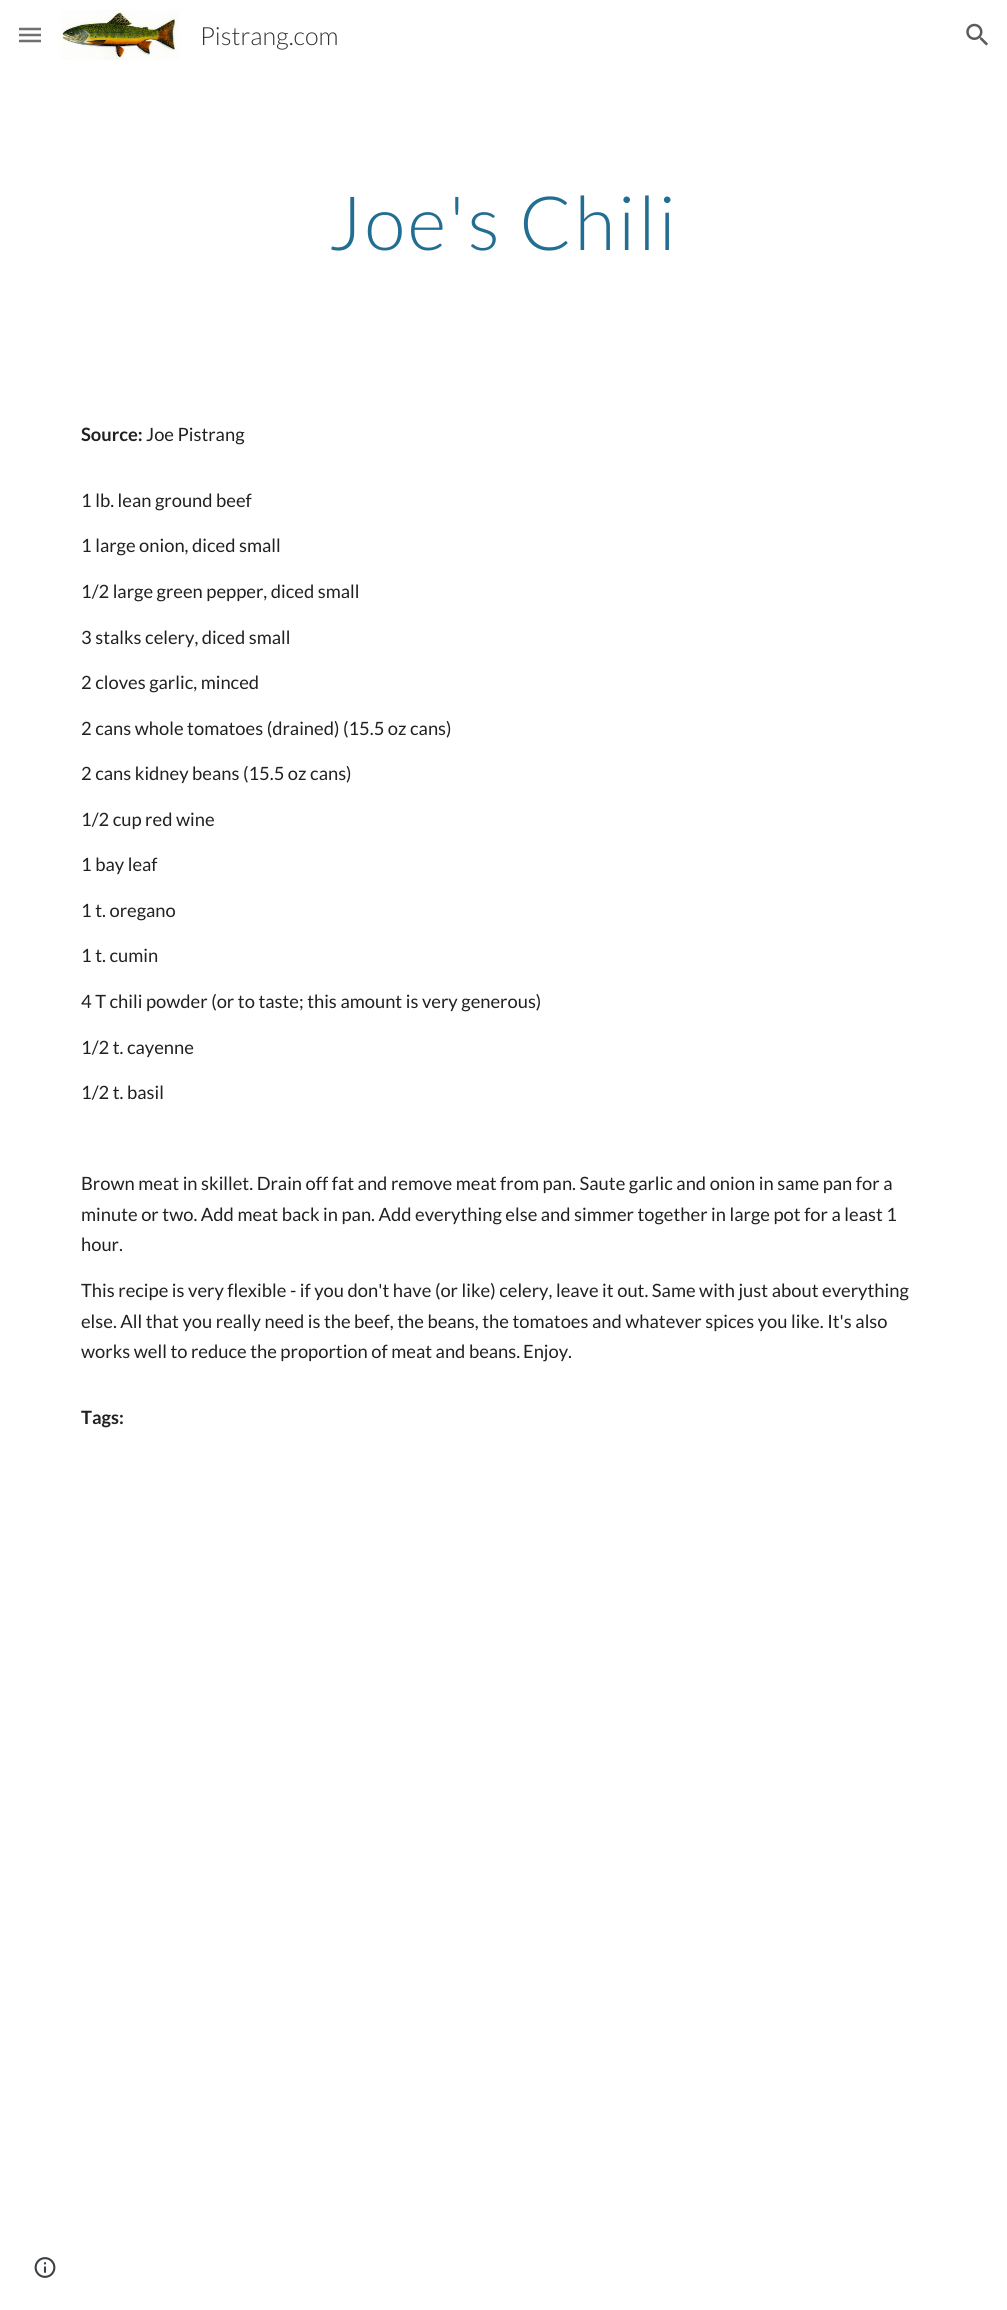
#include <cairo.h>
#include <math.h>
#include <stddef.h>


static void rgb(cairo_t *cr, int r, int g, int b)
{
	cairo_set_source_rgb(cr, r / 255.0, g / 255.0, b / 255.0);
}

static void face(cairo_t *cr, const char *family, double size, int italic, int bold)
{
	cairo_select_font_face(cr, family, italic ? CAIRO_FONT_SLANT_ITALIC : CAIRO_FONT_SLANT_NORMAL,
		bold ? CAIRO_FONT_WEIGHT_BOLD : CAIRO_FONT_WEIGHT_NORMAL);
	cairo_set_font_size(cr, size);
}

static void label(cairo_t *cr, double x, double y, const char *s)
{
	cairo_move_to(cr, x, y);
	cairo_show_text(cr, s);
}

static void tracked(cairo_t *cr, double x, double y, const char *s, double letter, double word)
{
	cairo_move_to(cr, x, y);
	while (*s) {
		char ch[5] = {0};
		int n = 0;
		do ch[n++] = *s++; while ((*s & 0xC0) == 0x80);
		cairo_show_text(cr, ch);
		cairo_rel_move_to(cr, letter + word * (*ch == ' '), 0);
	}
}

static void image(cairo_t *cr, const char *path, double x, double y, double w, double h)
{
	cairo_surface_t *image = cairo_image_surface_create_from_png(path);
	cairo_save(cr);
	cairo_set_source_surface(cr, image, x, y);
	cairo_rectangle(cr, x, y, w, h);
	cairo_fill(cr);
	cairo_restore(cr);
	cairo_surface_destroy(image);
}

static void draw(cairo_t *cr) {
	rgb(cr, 255, 255, 255);
	cairo_paint(cr);
	cairo_new_path(cr);
	cairo_move_to(cr, 19, 29);
	cairo_line_to(cr, 41, 29);
	cairo_move_to(cr, 19, 35);
	cairo_line_to(cr, 41, 35);
	cairo_move_to(cr, 19, 41);
	cairo_line_to(cr, 41, 41);
	rgb(cr, 112, 112, 112);
	cairo_set_line_width(cr, 2.5);
	cairo_stroke(cr);
	image(cr, "image0.png", 60, 10, 120, 50);
	face(cr, "Lato Light", 25, 0, 0);
	rgb(cr, 51, 51, 51);
	label(cr, 200, 45, "Pistrang.com");
	image(cr, "image1.png", 966, 23, 22, 23);
	face(cr, "Lato Light", 75, 0, 0);
	rgb(cr, 34, 110, 147);
	tracked(cr, 328, 250, "Joe's Chili", 2.5, 0);
	face(cr, "Lato", 18.35, 0, 1);
	rgb(cr, 33, 33, 33);
	label(cr, 81, 441, "Source:");
	face(cr, "Lato", 18.35, 0, 0);
	label(cr, 146, 441, "Joe Pistrang");
	label(cr, 81, 507, "1 lb. lean ground beef");
	label(cr, 81, 552, "1 large onion, diced small");
	label(cr, 81, 598, "1/2 large green pepper, diced small");
	label(cr, 81, 644, "3 stalks celery, diced small");
	label(cr, 81, 689, "2 cloves garlic, minced");
	label(cr, 81, 735, "2 cans whole tomatoes (drained) (15.5 oz cans)");
	label(cr, 81, 780, "2 cans kidney beans (15.5 oz cans)");
	label(cr, 81, 826, "1/2 cup red wine");
	label(cr, 81, 871, "1 bay leaf");
	label(cr, 81, 917, "1 t. oregano");
	label(cr, 81, 962, "1 t. cumin");
	label(cr, 81, 1008, "4 T chili powder (or to taste; this amount is very generous)");
	label(cr, 81, 1054, "1/2 t. cayenne");
	label(cr, 81, 1099, "1/2 t. basil");
	label(cr, 81, 1190, "Brown meat in skillet. Drain off fat and remove meat from pan. Saute garlic and onion in same pan for a");
	label(cr, 81, 1221, "minute or two. Add meat back in pan. Add everything else and simmer together in large pot for a least 1");
	label(cr, 81, 1251, "hour.");
	label(cr, 81, 1297, "This recipe is very flexible - if you don't have (or like) celery, leave it out. Same with just about everything");
	label(cr, 81, 1328, "else. All that you really need is the beef, the beans, the tomatoes and whatever spices you like. It's also");
	label(cr, 81, 1358, "works well to reduce the proportion of meat and beans.");
	label(cr, 523, 1358, "Enjoy.");
	face(cr, "Lato", 18.35, 0, 1);
	label(cr, 81, 1424, "Tags:");
	image(cr, "image2.png", 34, 2257, 22, 21);
}

int main(void) {
	cairo_surface_t *surface = cairo_image_surface_create(CAIRO_FORMAT_RGB24, 1007, 2310);
	cairo_t *cr = cairo_create(surface);
	cairo_font_options_t *options = cairo_font_options_create();
	cairo_font_options_set_hint_metrics(options, CAIRO_HINT_METRICS_OFF);
	cairo_font_options_set_hint_style(options, CAIRO_HINT_STYLE_NONE);
	cairo_set_font_options(cr, options);
	cairo_set_miter_limit(cr, 4);
	draw(cr);
	cairo_surface_write_to_png(surface, "render.png");
	cairo_font_options_destroy(options);
	cairo_destroy(cr);
	cairo_surface_destroy(surface);
	return 0;
}
